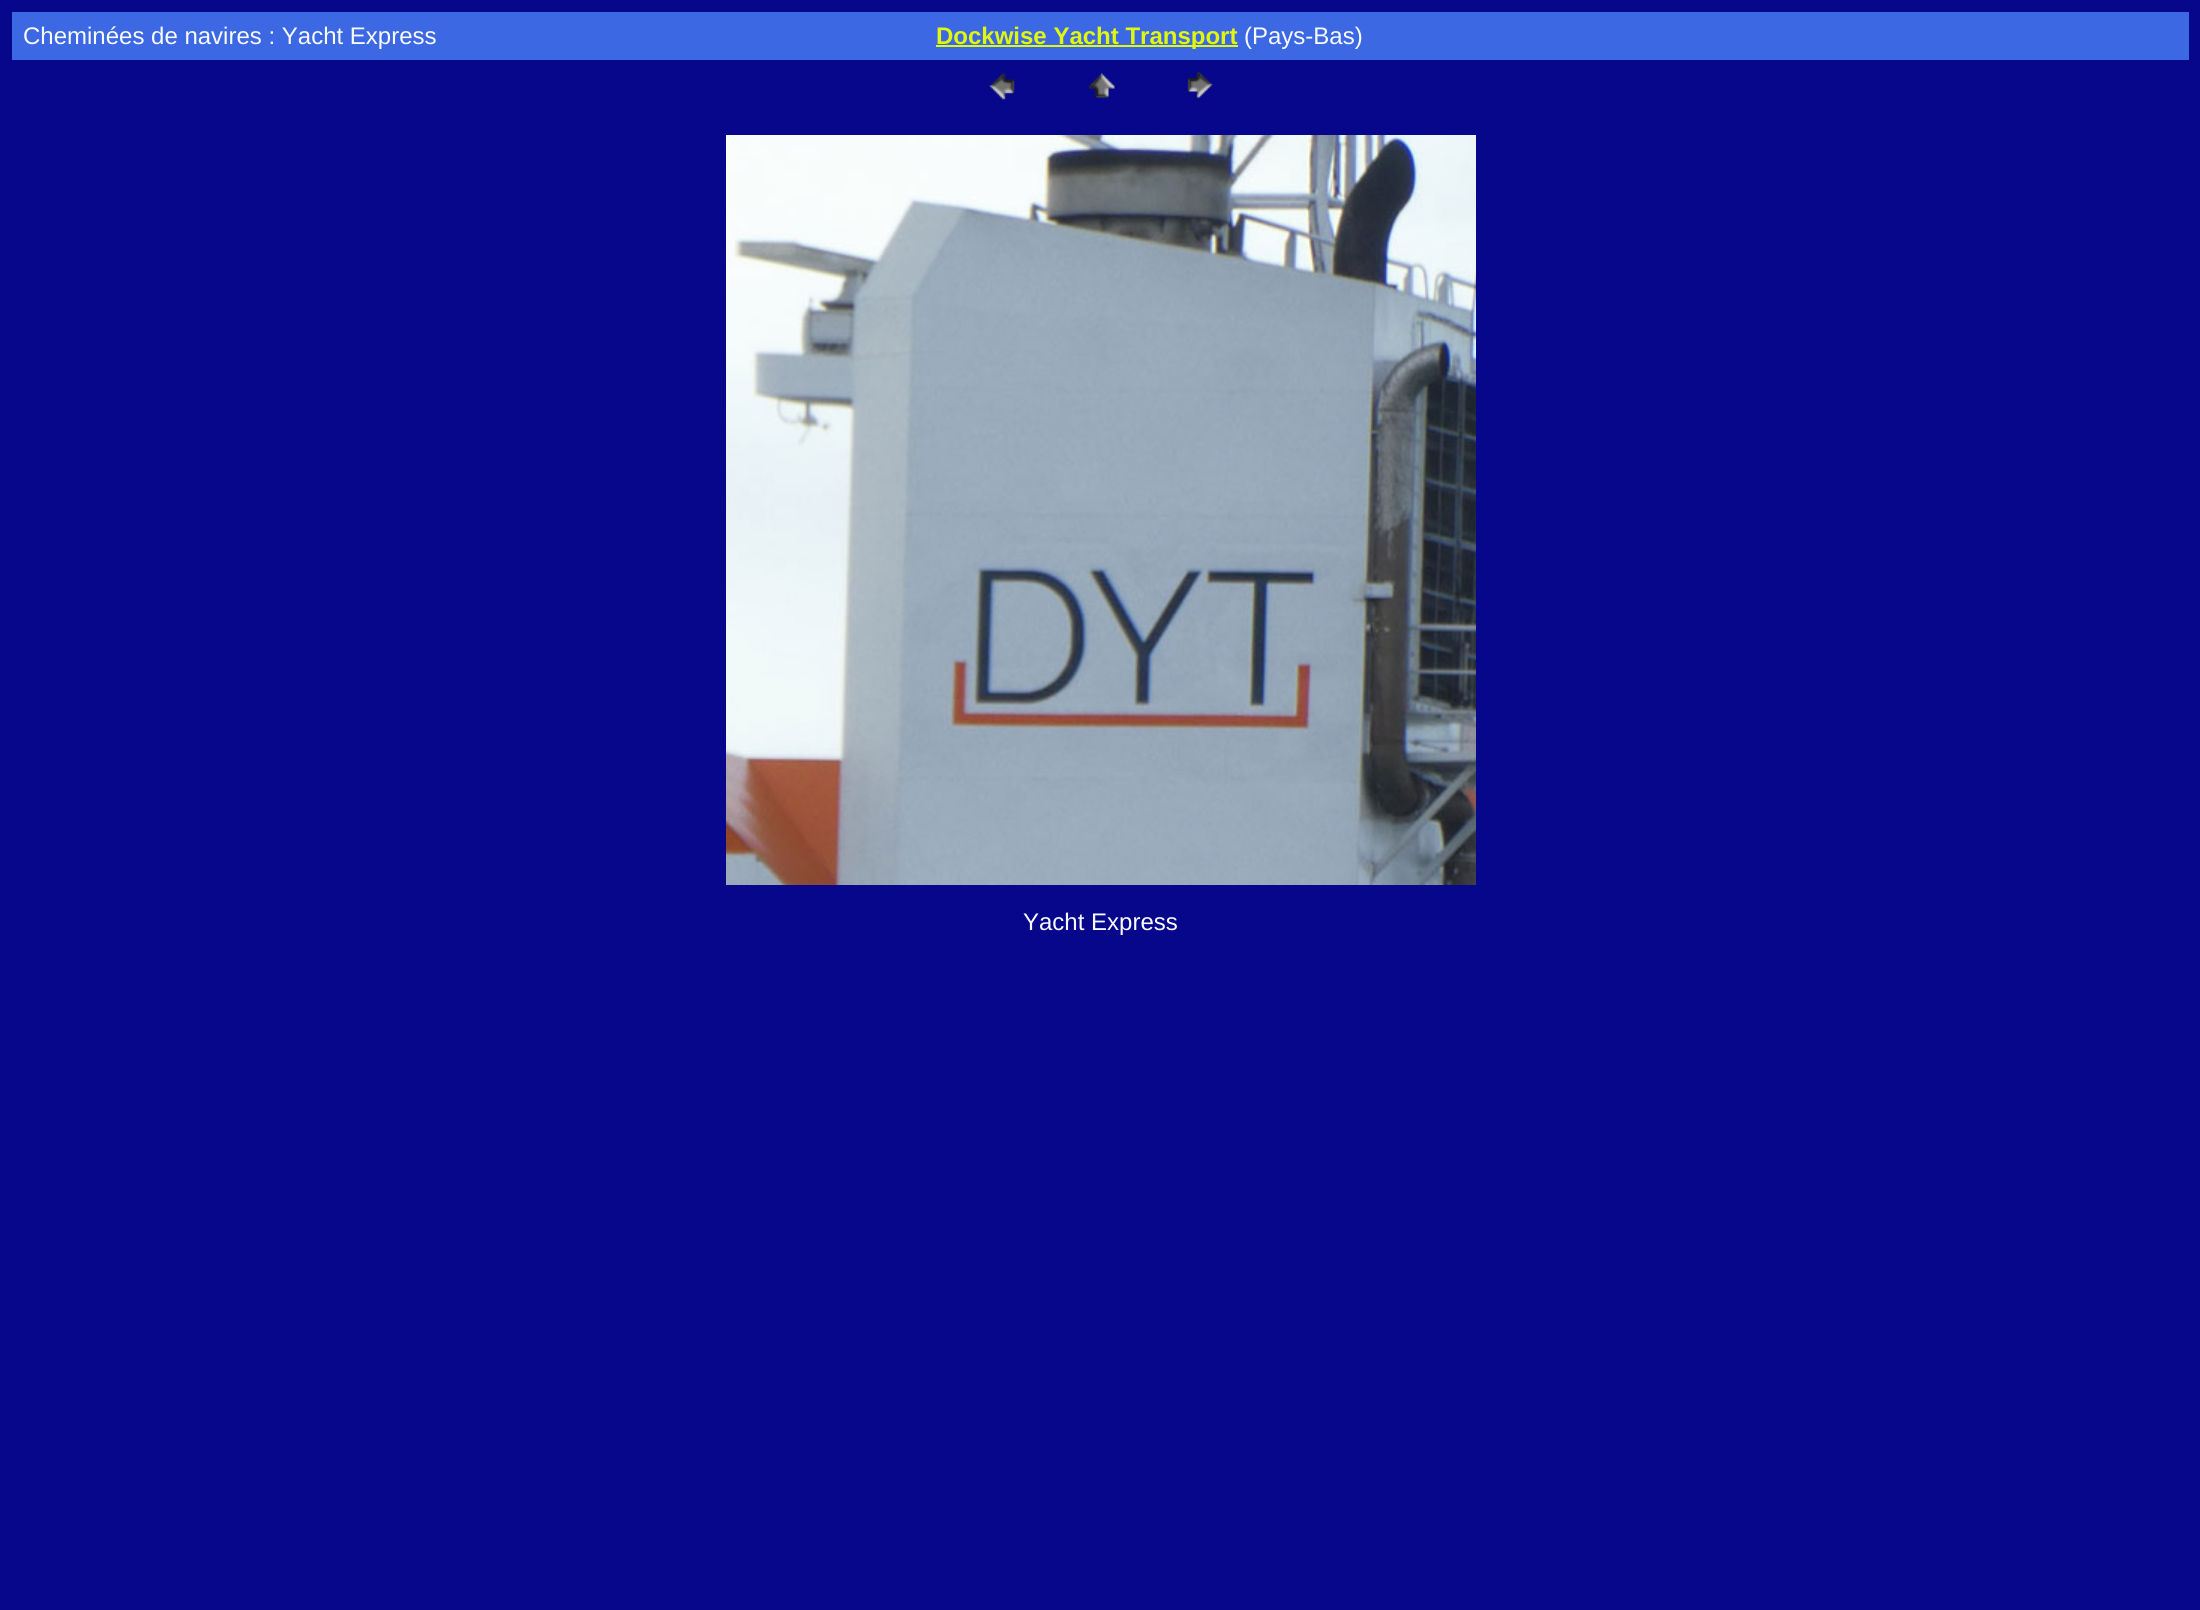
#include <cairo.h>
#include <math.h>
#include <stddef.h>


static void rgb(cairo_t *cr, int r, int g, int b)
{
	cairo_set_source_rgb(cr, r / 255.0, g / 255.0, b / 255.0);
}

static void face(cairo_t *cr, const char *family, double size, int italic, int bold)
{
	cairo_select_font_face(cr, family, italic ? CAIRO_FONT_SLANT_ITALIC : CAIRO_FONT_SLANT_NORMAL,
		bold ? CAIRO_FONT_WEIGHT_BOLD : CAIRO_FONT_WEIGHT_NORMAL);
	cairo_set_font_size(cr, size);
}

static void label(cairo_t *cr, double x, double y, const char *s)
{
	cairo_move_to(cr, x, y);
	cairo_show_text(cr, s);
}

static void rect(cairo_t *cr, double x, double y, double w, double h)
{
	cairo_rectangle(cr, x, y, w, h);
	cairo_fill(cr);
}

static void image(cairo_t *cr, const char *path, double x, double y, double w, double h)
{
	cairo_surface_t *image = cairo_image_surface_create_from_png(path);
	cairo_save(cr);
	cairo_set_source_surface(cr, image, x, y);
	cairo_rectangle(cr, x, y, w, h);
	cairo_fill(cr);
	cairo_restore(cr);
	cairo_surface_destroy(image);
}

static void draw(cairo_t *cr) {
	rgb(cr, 7, 7, 140);
	cairo_paint(cr);
	rgb(cr, 61, 104, 227);
	rect(cr, 12, 12, 2177, 48);
	face(cr, "Liberation Sans", 24, 0, 0);
	rgb(cr, 247, 251, 252);
	label(cr, 23, 44, "Cheminées de navires : Yacht Express");
	rgb(cr, 223, 248, 14);
	rect(cr, 936, 45, 302, 2);
	face(cr, "Liberation Sans", 24, 0, 1);
	label(cr, 936, 44, "Dockwise Yacht Transport");
	face(cr, "Liberation Sans", 24, 0, 0);
	rgb(cr, 247, 251, 252);
	label(cr, 1244, 44, "(Pays-Bas)");
	image(cr, "image0.png", 989, 73, 26, 27);
	image(cr, "image1.png", 1088, 73, 27, 25);
	image(cr, "image2.png", 1187, 71, 26, 27);
	image(cr, "image3.png", 726, 135, 750, 750);
	label(cr, 1023, 930, "Yacht Express");
}

int main(void) {
	cairo_surface_t *surface = cairo_image_surface_create(CAIRO_FORMAT_RGB24, 2200, 1610);
	cairo_t *cr = cairo_create(surface);
	cairo_font_options_t *options = cairo_font_options_create();
	cairo_font_options_set_hint_metrics(options, CAIRO_HINT_METRICS_OFF);
	cairo_font_options_set_hint_style(options, CAIRO_HINT_STYLE_NONE);
	cairo_set_font_options(cr, options);
	cairo_set_miter_limit(cr, 4);
	draw(cr);
	cairo_surface_write_to_png(surface, "render.png");
	cairo_font_options_destroy(options);
	cairo_destroy(cr);
	cairo_surface_destroy(surface);
	return 0;
}
